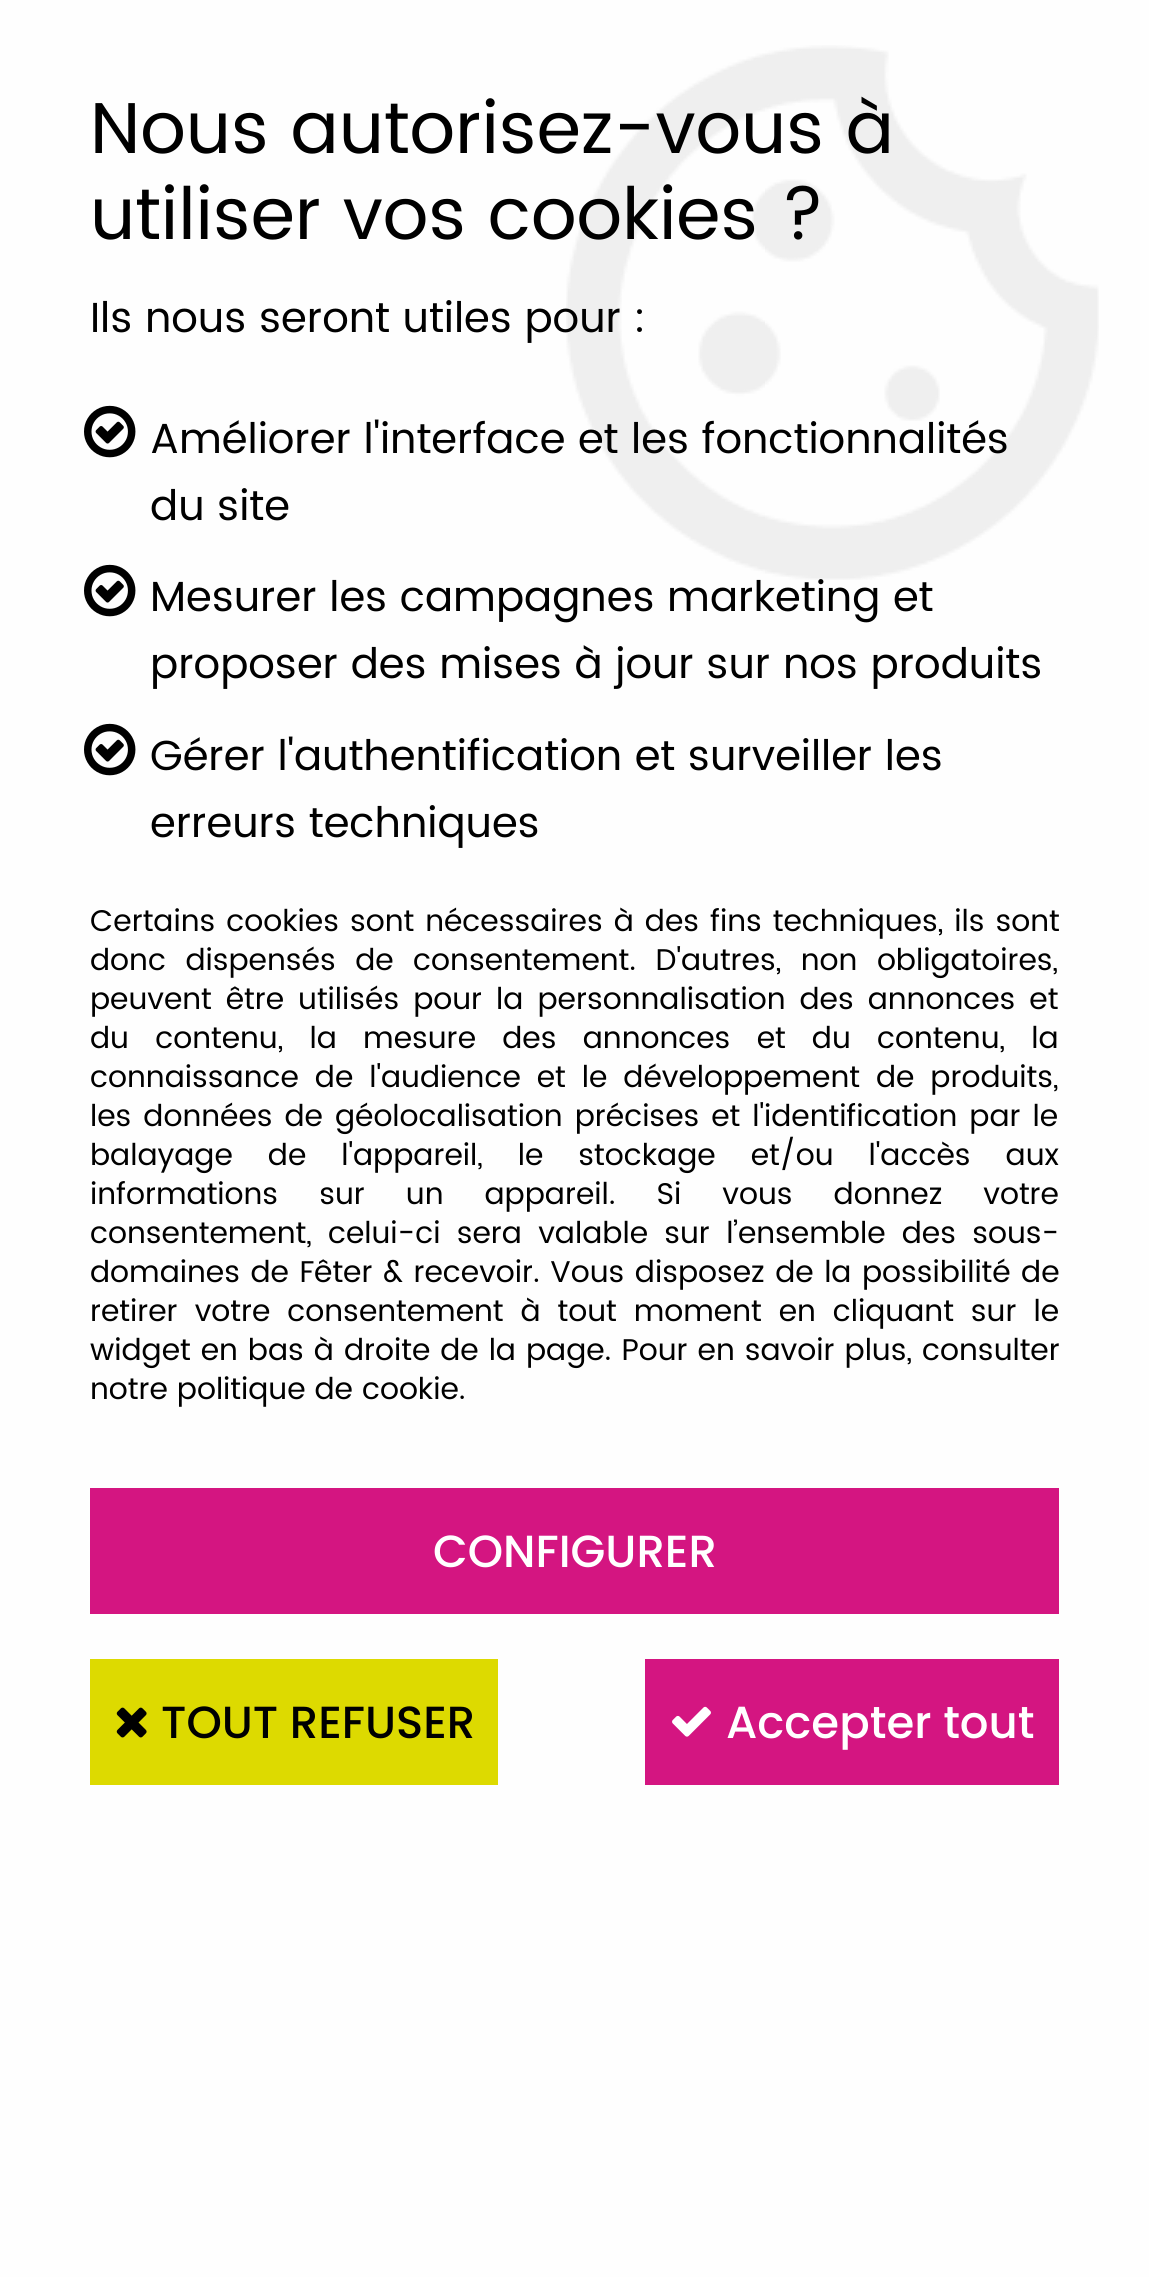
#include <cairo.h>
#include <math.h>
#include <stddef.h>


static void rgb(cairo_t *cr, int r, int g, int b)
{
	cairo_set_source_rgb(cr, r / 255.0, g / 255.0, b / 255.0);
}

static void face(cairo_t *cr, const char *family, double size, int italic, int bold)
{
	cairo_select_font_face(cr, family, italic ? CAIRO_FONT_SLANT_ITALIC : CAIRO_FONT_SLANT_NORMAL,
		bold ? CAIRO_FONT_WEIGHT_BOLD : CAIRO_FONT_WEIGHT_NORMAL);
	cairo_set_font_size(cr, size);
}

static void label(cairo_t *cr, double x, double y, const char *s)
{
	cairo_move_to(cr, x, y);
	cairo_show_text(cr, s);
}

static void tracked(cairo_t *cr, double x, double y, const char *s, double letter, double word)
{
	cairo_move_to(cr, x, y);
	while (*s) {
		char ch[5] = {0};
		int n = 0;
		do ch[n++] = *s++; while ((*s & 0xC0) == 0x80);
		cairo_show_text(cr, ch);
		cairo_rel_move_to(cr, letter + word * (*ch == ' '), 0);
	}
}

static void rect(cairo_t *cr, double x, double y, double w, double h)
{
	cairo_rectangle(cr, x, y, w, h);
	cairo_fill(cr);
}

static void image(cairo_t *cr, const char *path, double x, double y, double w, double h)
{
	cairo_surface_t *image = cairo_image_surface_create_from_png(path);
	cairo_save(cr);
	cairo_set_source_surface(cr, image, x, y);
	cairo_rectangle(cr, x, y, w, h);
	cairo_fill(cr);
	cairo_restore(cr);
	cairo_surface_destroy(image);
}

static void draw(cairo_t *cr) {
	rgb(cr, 254, 254, 254);
	cairo_paint(cr);
	image(cr, "image0.png", 566, 45, 533, 535);
	face(cr, "Poppins", 72, 0, 0);
	rgb(cr, 0, 0, 0);
	label(cr, 90, 153, "Nous autorisez-vous à");
	label(cr, 90, 239, "utiliser vos cookies ?");
	face(cr, "Poppins", 42, 0, 0);
	label(cr, 90, 332, "Ils nous seront utiles pour :");
	image(cr, "image1.png", 84, 405, 52, 53);
	label(cr, 150, 453, "Améliorer l'interface et les fonctionnalités");
	label(cr, 150, 520, "du site");
	image(cr, "image1.png", 84, 564, 52, 53);
	label(cr, 150, 611, "Mesurer les campagnes marketing et");
	label(cr, 150, 678, "proposer des mises à jour sur nos produits");
	image(cr, "image1.png", 84, 723, 52, 53);
	label(cr, 150, 770, "Gérer l'authentification et surveiller les");
	label(cr, 150, 837, "erreurs techniques");
	face(cr, "Poppins", 30, 0, 0);
	tracked(cr, 90, 931, "Certains cookies sont nécessaires à des fins techniques, ils sont", 0, 2);
	tracked(cr, 90, 970, "donc dispensés de consentement. D'autres, non obligatoires,", 0, 10.5);
	tracked(cr, 90, 1009, "peuvent être utilisés pour la personnalisation des annonces et", 0, 5);
	tracked(cr, 90, 1048, "du contenu, la mesure des annonces et du contenu, la", 0, 17.25);
	tracked(cr, 90, 1087, "connaissance de l'audience et le développement de produits,", 0, 7);
	tracked(cr, 90, 1126, "les données de géolocalisation précises et l'identification par le", 0, 3);
	tracked(cr, 90, 1165, "balayage de l'appareil, le stockage et/ou l'accès aux", 0, 26);
	tracked(cr, 90, 1204, "informations sur un appareil. Si vous donnez votre", 0, 32);
	tracked(cr, 90, 1243, "consentement, celui-ci sera valable sur l’ensemble des sous-", 0, 7.25);
	tracked(cr, 90, 1282, "domaines de Fêter & recevoir. Vous disposez de la possibilité de", 0, 1.5);
	tracked(cr, 90, 1321, "retirer votre consentement à tout moment en cliquant sur le", 0, 8);
	tracked(cr, 90, 1360, "widget en bas à droite de la page. Pour en savoir plus, consulter", 0, 1);
	label(cr, 90, 1399, "notre politique de cookie.");
	rgb(cr, 212, 21, 129);
	rect(cr, 90, 1488, 969, 126);
	face(cr, "Poppins Medium", 45, 0, 0);
	rgb(cr, 255, 255, 255);
	label(cr, 433, 1567, "CONFIGURER");
	rgb(cr, 221, 218, 0);
	rect(cr, 90, 1659, 408, 126);
	image(cr, "image2.png", 116, 1707, 31, 31);
	rgb(cr, 0, 0, 0);
	label(cr, 161, 1738, "TOUT REFUSER");
	rgb(cr, 212, 21, 129);
	rect(cr, 645, 1659, 414, 126);
	image(cr, "image3.png", 672, 1706, 39, 31);
	rgb(cr, 255, 255, 255);
	label(cr, 726, 1738, "Accepter tout");
}

int main(void) {
	cairo_surface_t *surface = cairo_image_surface_create(CAIRO_FORMAT_RGB24, 1149, 2277);
	cairo_t *cr = cairo_create(surface);
	cairo_font_options_t *options = cairo_font_options_create();
	cairo_font_options_set_hint_metrics(options, CAIRO_HINT_METRICS_OFF);
	cairo_font_options_set_hint_style(options, CAIRO_HINT_STYLE_NONE);
	cairo_set_font_options(cr, options);
	cairo_set_miter_limit(cr, 4);
	draw(cr);
	cairo_surface_write_to_png(surface, "render.png");
	cairo_font_options_destroy(options);
	cairo_destroy(cr);
	cairo_surface_destroy(surface);
	return 0;
}
